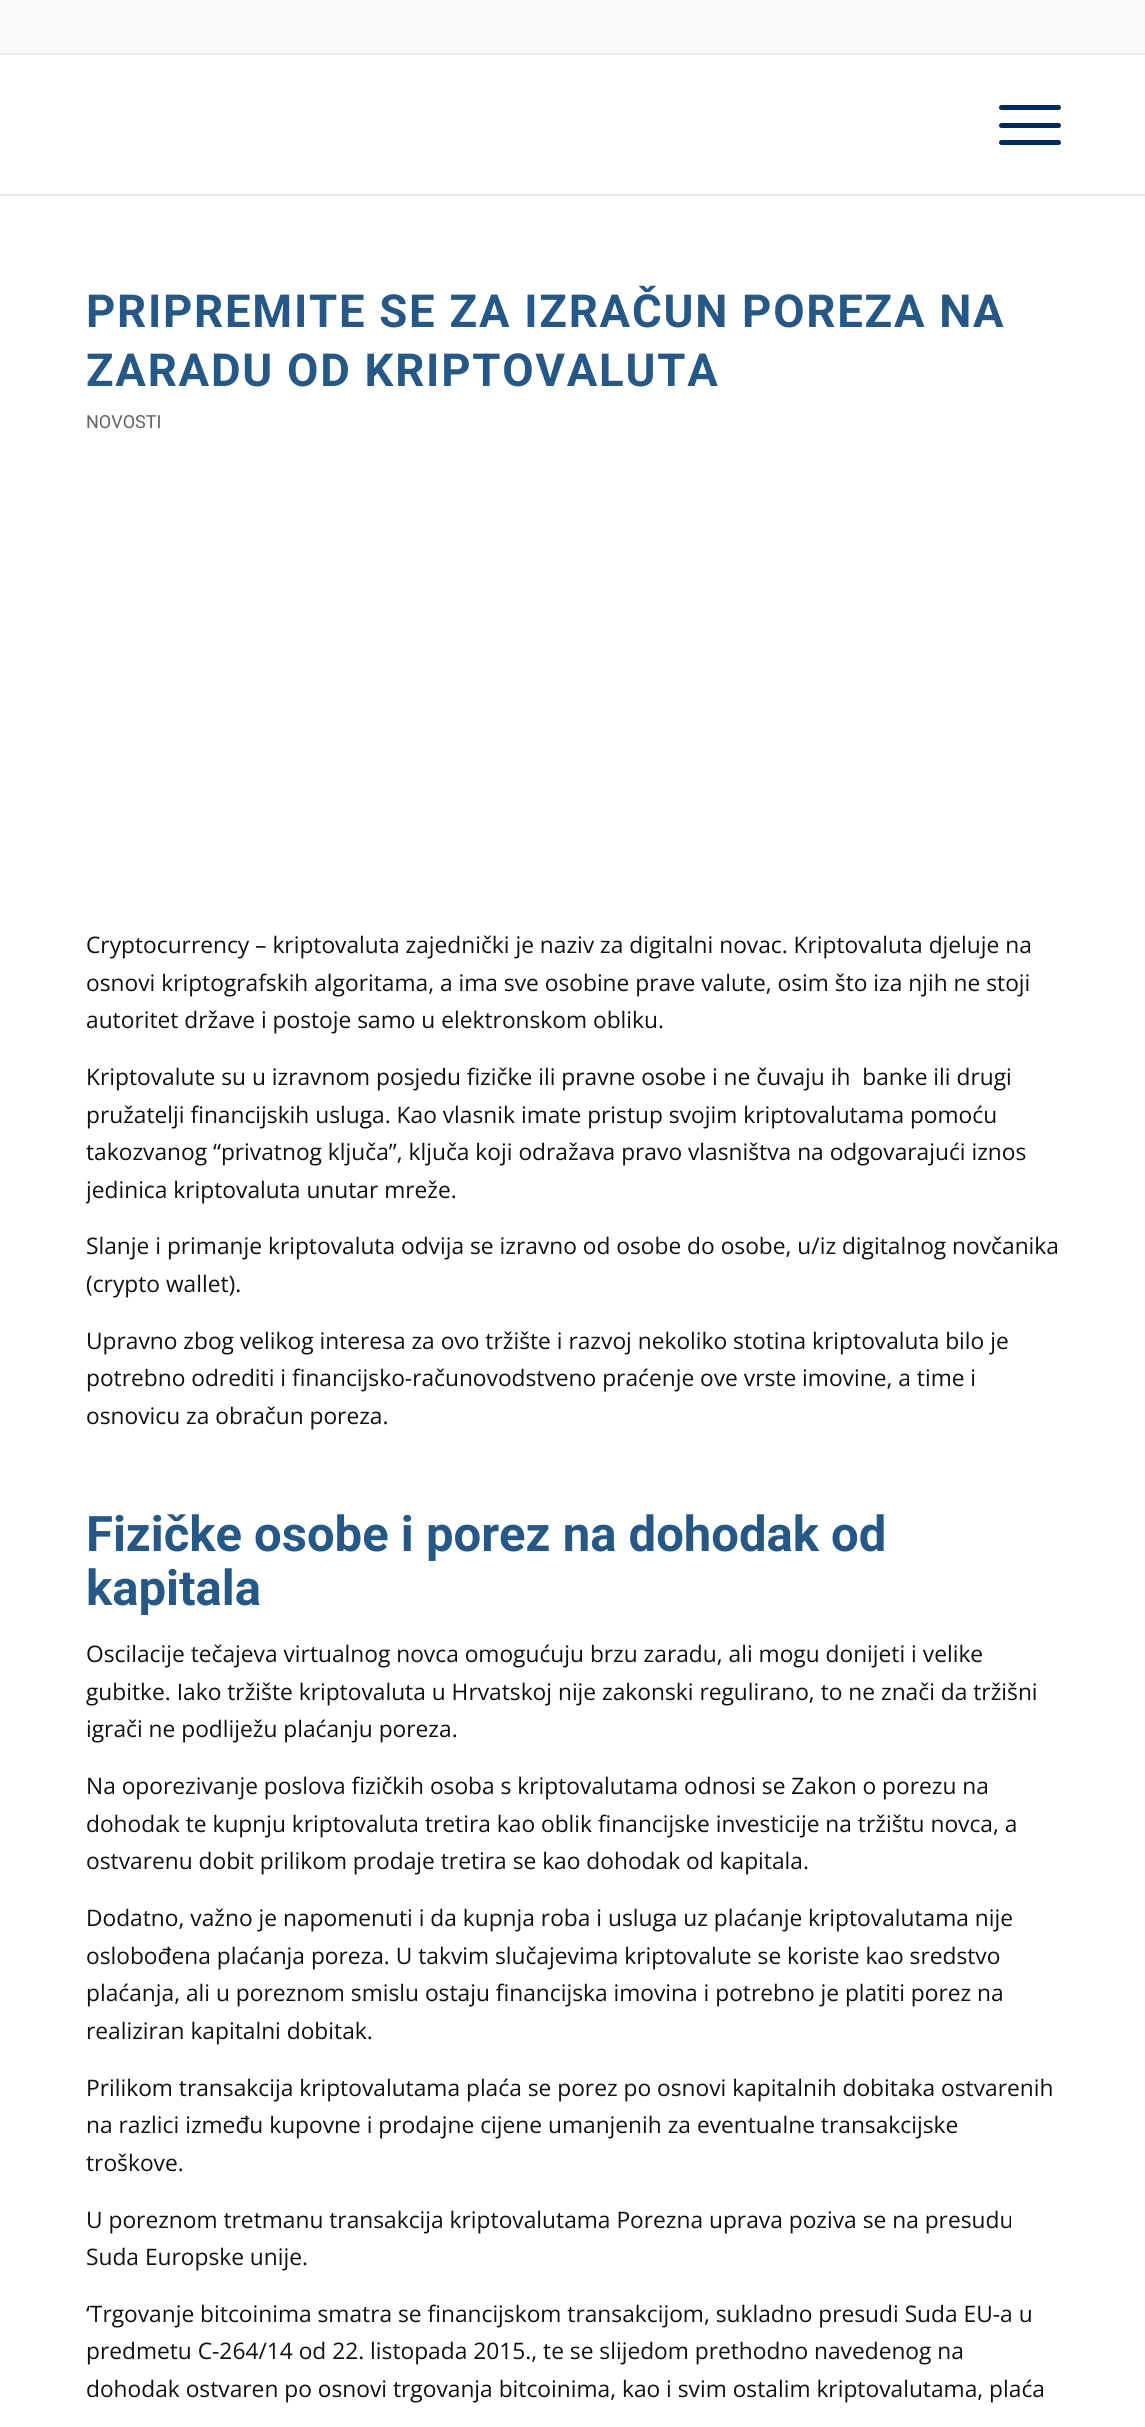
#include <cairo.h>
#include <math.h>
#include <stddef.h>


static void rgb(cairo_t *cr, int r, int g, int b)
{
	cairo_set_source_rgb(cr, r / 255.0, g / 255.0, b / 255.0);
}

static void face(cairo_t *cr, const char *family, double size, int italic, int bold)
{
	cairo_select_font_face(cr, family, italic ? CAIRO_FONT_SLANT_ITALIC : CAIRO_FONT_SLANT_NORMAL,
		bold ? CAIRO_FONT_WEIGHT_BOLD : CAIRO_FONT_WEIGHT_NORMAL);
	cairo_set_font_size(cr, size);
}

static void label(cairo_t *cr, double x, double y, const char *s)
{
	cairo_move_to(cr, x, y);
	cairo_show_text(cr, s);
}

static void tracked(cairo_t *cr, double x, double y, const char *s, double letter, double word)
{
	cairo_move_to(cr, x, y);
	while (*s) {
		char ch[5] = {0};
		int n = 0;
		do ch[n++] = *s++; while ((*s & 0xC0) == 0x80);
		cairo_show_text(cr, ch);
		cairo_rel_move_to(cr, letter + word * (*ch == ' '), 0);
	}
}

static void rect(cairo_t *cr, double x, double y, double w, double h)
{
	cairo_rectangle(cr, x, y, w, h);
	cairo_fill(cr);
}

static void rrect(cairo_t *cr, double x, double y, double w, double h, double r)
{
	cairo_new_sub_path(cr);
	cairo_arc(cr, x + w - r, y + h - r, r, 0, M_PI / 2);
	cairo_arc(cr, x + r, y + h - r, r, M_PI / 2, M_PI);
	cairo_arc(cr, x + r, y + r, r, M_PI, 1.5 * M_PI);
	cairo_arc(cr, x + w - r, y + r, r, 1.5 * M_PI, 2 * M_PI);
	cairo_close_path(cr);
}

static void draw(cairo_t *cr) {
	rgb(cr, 255, 255, 255);
	cairo_paint(cr);
	rgb(cr, 248, 248, 248);
	rect(cr, 0, 0, 1145, 53);
	rgb(cr, 235, 235, 235);
	rect(cr, 0, 53, 1145, 2);
	rect(cr, 0, 194, 1145, 2);
	rgb(cr, 0, 41, 92);
	rrect(cr, 999, 123, 62, 5, 2.5);
	cairo_fill(cr);
	rrect(cr, 999, 105, 62, 5, 2.5);
	cairo_fill(cr);
	rrect(cr, 999, 140, 62, 5, 2.5);
	cairo_fill(cr);
	face(cr, "Roboto", 45.5, 0, 1);
	rgb(cr, 38, 88, 135);
	tracked(cr, 86, 327, "PRIPREMITE SE ZA IZRAČUN POREZA NA", 1.75, 0);
	tracked(cr, 86, 386, "ZARADU OD KRIPTOVALUTA", 1.75, 0);
	face(cr, "Roboto", 18, 0, 0);
	rgb(cr, 99, 97, 99);
	label(cr, 86, 428, "NOVOSTI");
	face(cr, "Open Sans", 22.75, 0, 0);
	rgb(cr, 18, 16, 18);
	label(cr, 86, 953, "Cryptocurrency – kriptovaluta zajednički je naziv za digitalni novac. Kriptovaluta djeluje na");
	label(cr, 86, 991, "osnovi kriptografskih algoritama, a ima sve osobine prave valute, osim što iza njih ne stoji");
	label(cr, 86, 1028, "autoritet države i postoje samo u elektronskom obliku.");
	label(cr, 86, 1085, "Kriptovalute su u izravnom posjedu fizičke ili pravne osobe i ne čuvaju ih  banke ili drugi");
	label(cr, 86, 1123, "pružatelji financijskih usluga. Kao vlasnik imate pristup svojim kriptovalutama pomoću");
	label(cr, 86, 1160, "takozvanog “privatnog ključa”, ključa koji odražava pravo vlasništva na odgovarajući iznos");
	cairo_save(cr);
	cairo_rectangle(cr, 86, 284, 975, 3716);
	cairo_clip(cr);
	label(cr, 86, 1198, "jedinica kriptovaluta unutar mreže.");
	cairo_restore(cr);
	label(cr, 86, 1254, "Slanje i primanje kriptovaluta odvija se izravno od osobe do osobe, u/iz digitalnog novčanika");
	label(cr, 86, 1292, "(crypto wallet).");
	label(cr, 86, 1349, "Upravno zbog velikog interesa za ovo tržište i razvoj nekoliko stotina kriptovaluta bilo je");
	label(cr, 86, 1386, "potrebno odrediti i financijsko-računovodstveno praćenje ove vrste imovine, a time i");
	label(cr, 86, 1424, "osnovicu za obračun poreza.");
	face(cr, "Roboto", 49, 0, 1);
	rgb(cr, 38, 88, 135);
	label(cr, 86, 1551, "Fizičke osobe i porez na dohodak od");
	label(cr, 86, 1605, "kapitala");
	face(cr, "Open Sans", 22.75, 0, 0);
	rgb(cr, 18, 16, 18);
	label(cr, 86, 1662, "Oscilacije tečajeva virtualnog novca omogućuju brzu zaradu, ali mogu donijeti i velike");
	label(cr, 86, 1700, "gubitke. Iako tržište kriptovaluta u Hrvatskoj nije zakonski regulirano, to ne znači da tržišni");
	label(cr, 86, 1737, "igrači ne podliježu plaćanju poreza.");
	label(cr, 86, 1794, "Na oporezivanje poslova fizičkih osoba s kriptovalutama odnosi se Zakon o porezu na");
	label(cr, 86, 1832, "dohodak te kupnju kriptovaluta tretira kao oblik financijske investicije na tržištu novca, a");
	label(cr, 86, 1869, "ostvarenu dobit prilikom prodaje tretira se kao dohodak od kapitala.");
	label(cr, 86, 1926, "Dodatno, važno je napomenuti i da kupnja roba i usluga uz plaćanje kriptovalutama nije");
	label(cr, 86, 1964, "oslobođena plaćanja poreza. U takvim slučajevima kriptovalute se koriste kao sredstvo");
	label(cr, 86, 2001, "plaćanja, ali u poreznom smislu ostaju financijska imovina i potrebno je platiti porez na");
	label(cr, 86, 2039, "realiziran kapitalni dobitak.");
	label(cr, 86, 2096, "Prilikom transakcija kriptovalutama plaća se porez po osnovi kapitalnih dobitaka ostvarenih");
	label(cr, 86, 2133, "na razlici između kupovne i prodajne cijene umanjenih za eventualne transakcijske");
	label(cr, 86, 2171, "troškove.");
	label(cr, 86, 2228, "U poreznom tretmanu transakcija kriptovalutama Porezna uprava poziva se na presudu");
	label(cr, 86, 2265, "Suda Europske unije.");
	label(cr, 86, 2322, "‘Trgovanje bitcoinima smatra se financijskom transakcijom, sukladno presudi Suda EU-a u");
	label(cr, 86, 2359, "predmetu C-264/14 od 22. listopada 2015., te se slijedom prethodno navedenog na");
	label(cr, 86, 2397, "dohodak ostvaren po osnovi trgovanja bitcoinima, kao i svim ostalim kriptovalutama, plaća");
}

int main(void) {
	cairo_surface_t *surface = cairo_image_surface_create(CAIRO_FORMAT_RGB24, 1145, 2427);
	cairo_t *cr = cairo_create(surface);
	cairo_font_options_t *options = cairo_font_options_create();
	cairo_font_options_set_hint_metrics(options, CAIRO_HINT_METRICS_OFF);
	cairo_font_options_set_hint_style(options, CAIRO_HINT_STYLE_NONE);
	cairo_set_font_options(cr, options);
	cairo_set_miter_limit(cr, 4);
	draw(cr);
	cairo_surface_write_to_png(surface, "render.png");
	cairo_font_options_destroy(options);
	cairo_destroy(cr);
	cairo_surface_destroy(surface);
	return 0;
}
